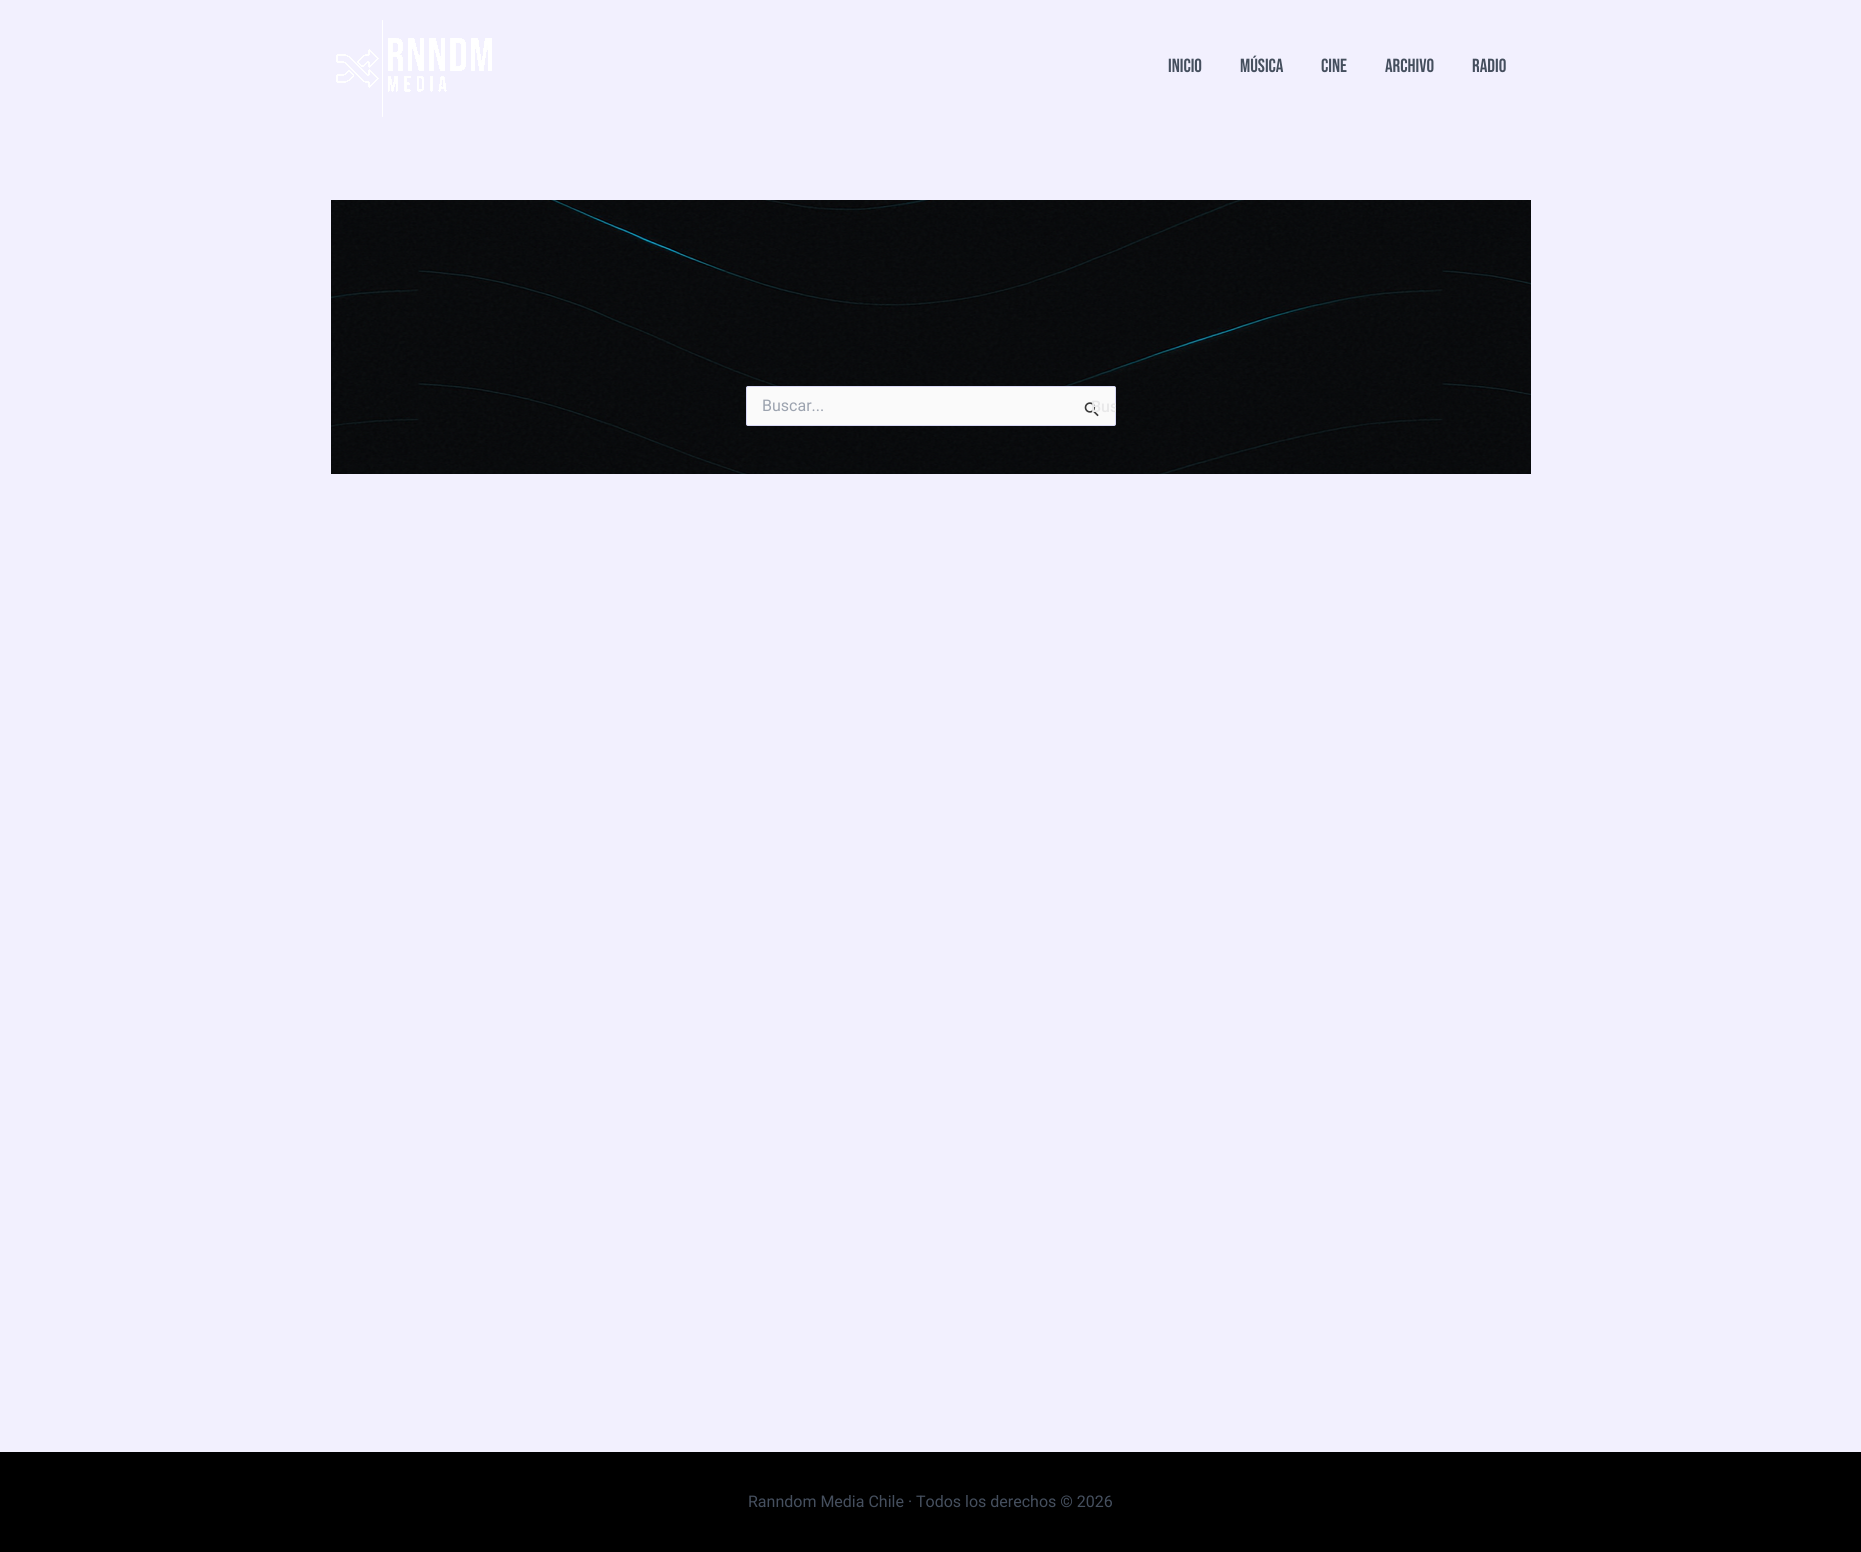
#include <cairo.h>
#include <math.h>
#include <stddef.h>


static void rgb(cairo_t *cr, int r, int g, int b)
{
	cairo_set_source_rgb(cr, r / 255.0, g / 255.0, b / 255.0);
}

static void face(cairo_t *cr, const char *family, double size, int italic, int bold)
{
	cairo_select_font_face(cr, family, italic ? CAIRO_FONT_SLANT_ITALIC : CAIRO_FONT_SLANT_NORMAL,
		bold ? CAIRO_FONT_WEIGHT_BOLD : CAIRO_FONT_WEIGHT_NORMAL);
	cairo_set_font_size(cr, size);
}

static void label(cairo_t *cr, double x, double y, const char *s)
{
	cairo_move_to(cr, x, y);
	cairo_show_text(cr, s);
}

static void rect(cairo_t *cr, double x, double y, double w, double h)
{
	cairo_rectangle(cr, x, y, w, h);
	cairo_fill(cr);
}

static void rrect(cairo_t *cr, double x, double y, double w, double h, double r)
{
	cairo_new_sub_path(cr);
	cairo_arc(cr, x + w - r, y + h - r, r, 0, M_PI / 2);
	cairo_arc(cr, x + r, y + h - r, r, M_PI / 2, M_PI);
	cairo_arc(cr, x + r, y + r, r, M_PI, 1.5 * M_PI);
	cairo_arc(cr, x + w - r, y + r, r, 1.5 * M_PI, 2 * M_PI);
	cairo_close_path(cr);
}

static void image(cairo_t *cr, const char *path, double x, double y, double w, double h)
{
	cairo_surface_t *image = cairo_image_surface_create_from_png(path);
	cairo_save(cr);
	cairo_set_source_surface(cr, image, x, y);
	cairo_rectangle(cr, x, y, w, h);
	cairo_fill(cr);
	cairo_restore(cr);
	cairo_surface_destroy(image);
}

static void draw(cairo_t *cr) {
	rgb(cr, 242, 240, 254);
	cairo_paint(cr);
	image(cr, "image0.png", 336, 20, 156, 97);
	face(cr, "Bebas Neue", 19, 0, 0);
	rgb(cr, 69, 79, 94);
	label(cr, 1168, 72, "INICIO");
	label(cr, 1240, 72, "Música");
	label(cr, 1321, 72, "CINE");
	label(cr, 1385, 72, "Archivo");
	label(cr, 1472, 72, "RADIO");
	image(cr, "image1.png", 331, 200, 1200, 274);
	rgb(cr, 250, 250, 250);
	rrect(cr, 746.5, 386.5, 369, 39, 1.5);
	cairo_fill_preserve(cr);
	rgb(cr, 216, 216, 245);
	cairo_set_line_width(cr, 1);
	cairo_stroke(cr);
	face(cr, "Roboto", 16, 0, 0);
	rgb(cr, 156, 163, 175);
	label(cr, 762, 411, "Buscar...");
	image(cr, "image2.png", 1084, 402, 15, 15);
	cairo_save(cr);
	rrect(cr, 1071, 386, 45, 42, 2);
	cairo_clip(cr);
	face(cr, "Roboto Medium", 16, 0, 0);
	rgb(cr, 232, 232, 233);
	label(cr, 1091, 412, "Bus");
	cairo_restore(cr);
	rgb(cr, 0, 0, 0);
	rect(cr, 0, 1452, 1861, 100);
	rgb(cr, 69, 79, 94);
	label(cr, 748, 1507, "Ranndom Media Chile · Todos los derechos © 2026");
}

int main(void) {
	cairo_surface_t *surface = cairo_image_surface_create(CAIRO_FORMAT_RGB24, 1861, 1552);
	cairo_t *cr = cairo_create(surface);
	cairo_font_options_t *options = cairo_font_options_create();
	cairo_font_options_set_hint_metrics(options, CAIRO_HINT_METRICS_OFF);
	cairo_font_options_set_hint_style(options, CAIRO_HINT_STYLE_NONE);
	cairo_set_font_options(cr, options);
	cairo_set_miter_limit(cr, 4);
	draw(cr);
	cairo_surface_write_to_png(surface, "render.png");
	cairo_font_options_destroy(options);
	cairo_destroy(cr);
	cairo_surface_destroy(surface);
	return 0;
}
